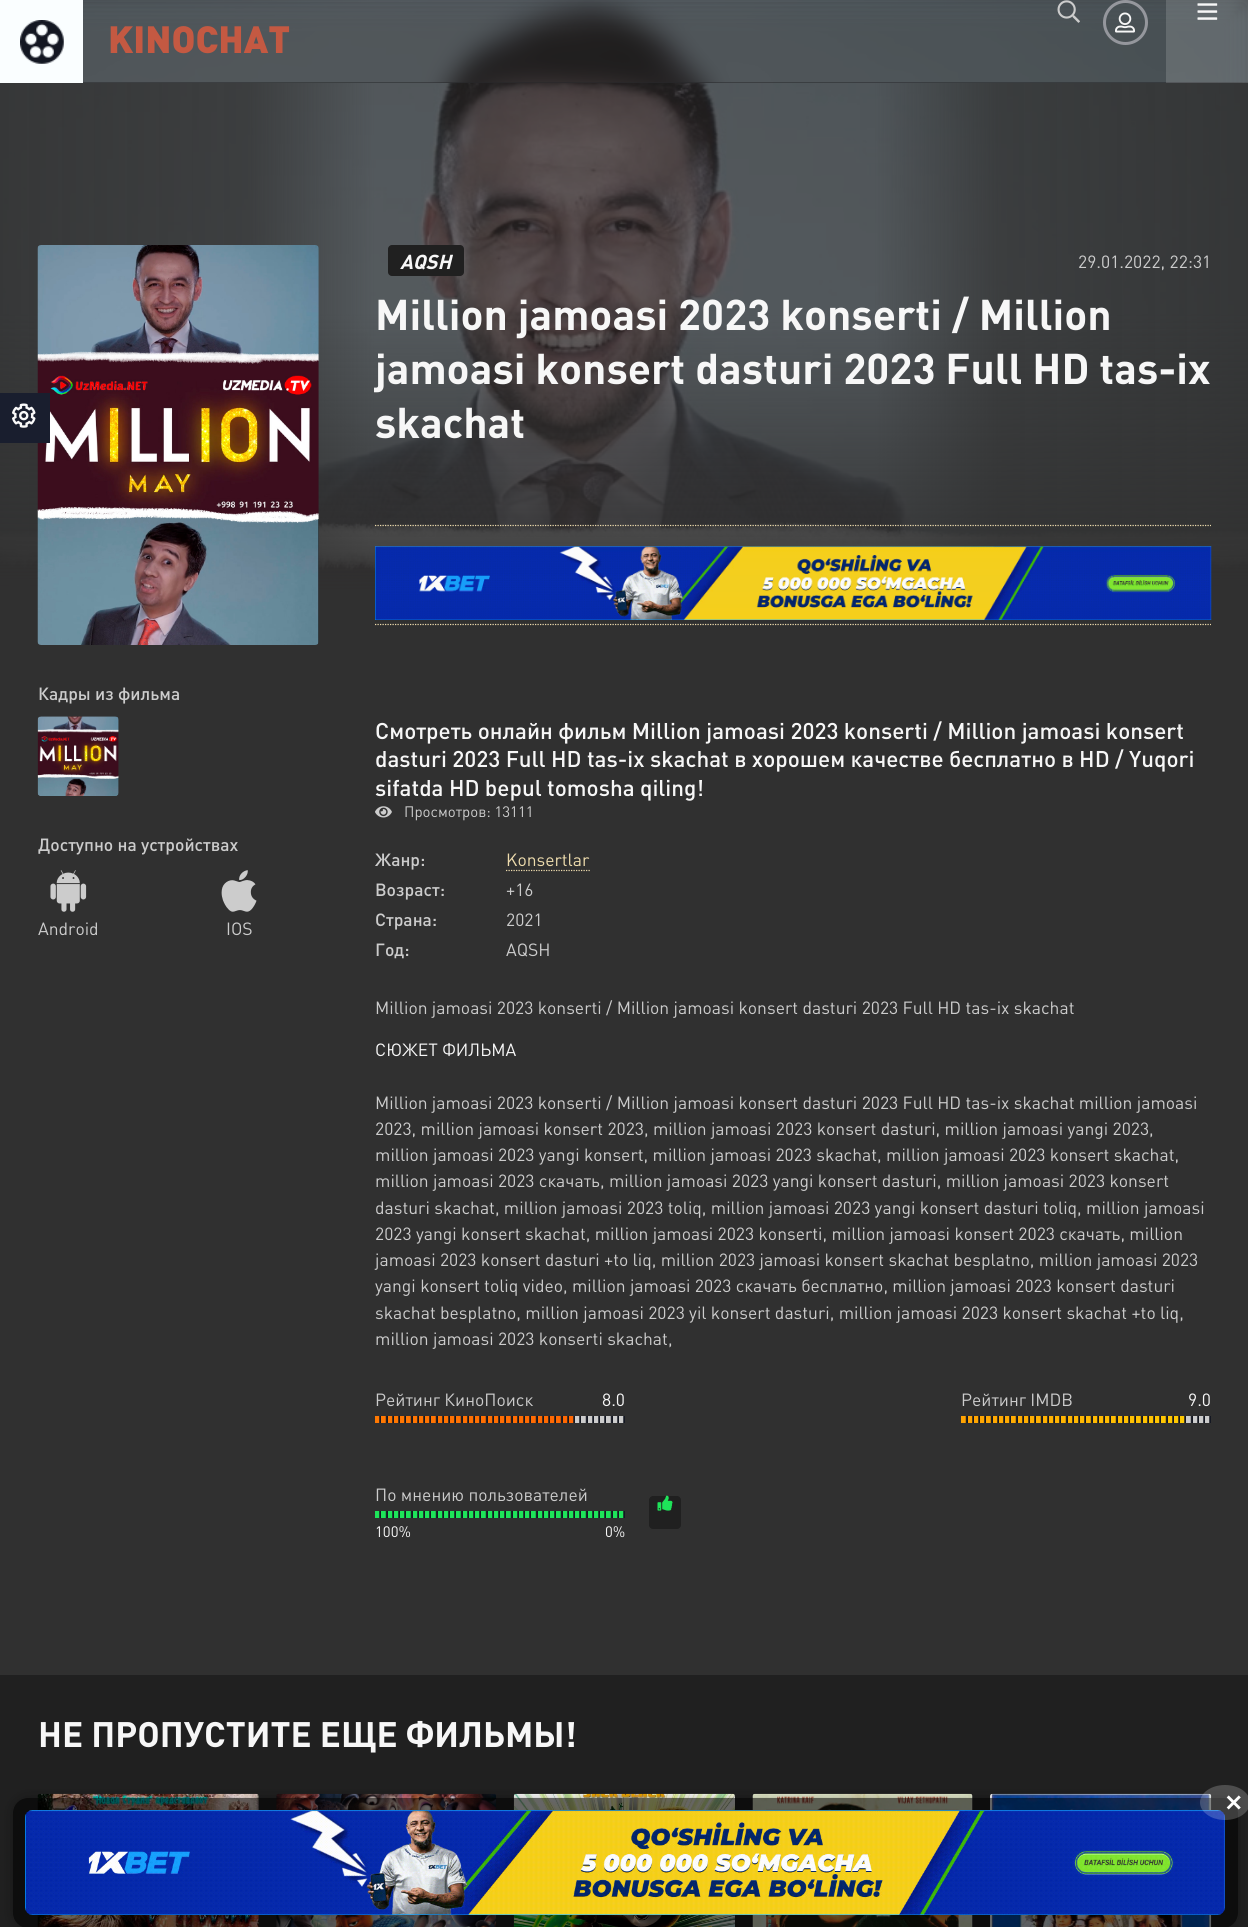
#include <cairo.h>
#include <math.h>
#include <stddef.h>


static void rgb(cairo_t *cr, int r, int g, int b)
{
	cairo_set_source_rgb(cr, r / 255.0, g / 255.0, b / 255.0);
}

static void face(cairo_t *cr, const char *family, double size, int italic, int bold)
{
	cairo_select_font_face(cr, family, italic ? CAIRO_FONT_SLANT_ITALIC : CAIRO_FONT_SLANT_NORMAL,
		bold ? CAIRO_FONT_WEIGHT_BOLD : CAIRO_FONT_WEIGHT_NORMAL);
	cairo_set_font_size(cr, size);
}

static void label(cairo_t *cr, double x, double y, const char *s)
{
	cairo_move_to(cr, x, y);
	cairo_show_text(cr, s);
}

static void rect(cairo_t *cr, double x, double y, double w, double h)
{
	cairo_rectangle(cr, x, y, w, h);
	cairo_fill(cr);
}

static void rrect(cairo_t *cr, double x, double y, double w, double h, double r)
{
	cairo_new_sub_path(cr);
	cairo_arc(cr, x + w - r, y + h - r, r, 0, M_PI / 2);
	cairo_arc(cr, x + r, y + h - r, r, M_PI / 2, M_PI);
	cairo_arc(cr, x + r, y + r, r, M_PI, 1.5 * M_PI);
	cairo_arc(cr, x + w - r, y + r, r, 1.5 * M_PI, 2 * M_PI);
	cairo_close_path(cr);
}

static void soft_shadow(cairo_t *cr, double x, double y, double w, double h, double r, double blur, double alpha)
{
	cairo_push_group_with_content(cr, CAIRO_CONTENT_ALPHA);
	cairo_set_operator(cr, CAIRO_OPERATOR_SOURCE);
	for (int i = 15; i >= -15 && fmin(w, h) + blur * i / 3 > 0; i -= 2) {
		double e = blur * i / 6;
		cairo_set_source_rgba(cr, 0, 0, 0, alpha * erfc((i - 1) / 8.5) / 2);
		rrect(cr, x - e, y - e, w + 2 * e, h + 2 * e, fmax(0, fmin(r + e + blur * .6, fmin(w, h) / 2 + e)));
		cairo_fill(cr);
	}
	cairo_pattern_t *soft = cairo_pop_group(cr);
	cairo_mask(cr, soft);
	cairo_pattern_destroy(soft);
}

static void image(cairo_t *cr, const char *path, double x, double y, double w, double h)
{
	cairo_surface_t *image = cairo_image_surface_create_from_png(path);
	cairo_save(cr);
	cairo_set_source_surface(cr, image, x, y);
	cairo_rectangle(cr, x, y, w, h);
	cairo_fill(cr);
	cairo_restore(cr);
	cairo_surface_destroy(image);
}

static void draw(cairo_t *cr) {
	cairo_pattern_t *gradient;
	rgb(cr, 48, 48, 48);
	cairo_paint(cr);
	image(cr, "image0.png", 0, 0, 1248, 625);
	cairo_set_source_rgba(cr, 1, 1, 1, 0.1);
	rect(cr, 83, 0, 1165, 83);
	image(cr, "image7.png", 37, 245, 282, 400);
	rgb(cr, 32, 32, 32);
	rrect(cr, 388, 245, 76, 31, 4);
	cairo_fill(cr);
	cairo_new_path(cr);
	cairo_move_to(cr, 375, 525.5);
	cairo_line_to(cr, 1211, 525.5);
	rgb(cr, 238, 220, 173);
	cairo_set_line_width(cr, 1.2);
	cairo_set_dash(cr, (double[]){1.25, 1.25}, 2, 0);
	cairo_stroke(cr);
	image(cr, "image11.png", 375, 546, 837, 74);
	cairo_new_path(cr);
	cairo_move_to(cr, 375, 624.5);
	cairo_line_to(cr, 1211, 624.5);
	cairo_stroke(cr);
	cairo_save(cr);
	cairo_rectangle(cr, 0, 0, 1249, 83);
	cairo_clip(cr);
	rgb(cr, 21, 23, 28);
	soft_shadow(cr, 0, 0, 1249, 625, 0, 12.5, 1);
	cairo_restore(cr);
	image(cr, "image1.png", 83, 0, 1165, 83);
	cairo_save(cr);
	cairo_rectangle(cr, 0, 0, 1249, 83);
	cairo_clip(cr);
	rgb(cr, 48, 48, 48);
	soft_shadow(cr, 0, 0, 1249, 625, 0, 12.5, 0.6);
	cairo_restore(cr);
	rgb(cr, 250, 254, 255);
	rect(cr, 0, 0, 83, 83);
	image(cr, "image2.png", 20, 20, 44, 44);
	face(cr, "DIN Black", 37.5, 0, 0);
	rgb(cr, 196, 89, 66);
	label(cr, 108, 53, "KINOCHAT");
	image(cr, "image3.png", 1057, 0, 23, 23);
	cairo_arc(cr, 1125.5, 22.5, 21, 0, 2 * M_PI);
	rgb(cr, 149, 151, 157);
	cairo_set_line_width(cr, 3);
	cairo_set_dash(cr, NULL, 0, 0);
	cairo_stroke(cr);
	image(cr, "image4.png", 1115, 12, 20, 21);
	cairo_set_source_rgba(cr, 1, 1, 1, 0.15);
	rect(cr, 1166, 0, 82, 83);
	image(cr, "image5.png", 1197, 3, 21, 17);
	rgb(cr, 25, 30, 46);
	rect(cr, 0, 393, 50, 50);
	image(cr, "image6.png", 12, 403, 24, 25);
	face(cr, "DIN Medium", 17.5, 0, 0);
	rgb(cr, 204, 204, 204);
	label(cr, 38, 700, "Кадры из фильма");
	image(cr, "image8.png", 37, 716, 82, 80);
	label(cr, 38, 851, "Доступно на устройствах");
	image(cr, "image9.png", 50, 870, 37, 42);
	face(cr, "DIN", 17.5, 0, 0);
	label(cr, 38, 935, "Android");
	image(cr, "image10.png", 221, 870, 36, 42);
	label(cr, 226, 935, "IOS");
	face(cr, "DIN", 20, 1, 1);
	rgb(cr, 247, 247, 247);
	label(cr, 400, 269, "AQSH");
	face(cr, "DIN", 17.5, 0, 0);
	rgb(cr, 204, 204, 204);
	label(cr, 1078, 268, "29.01.2022, 22:31");
	face(cr, "DIN", 42.5, 0, 1);
	rgb(cr, 247, 247, 247);
	label(cr, 375, 330, "Million jamoasi 2023 konserti / Million");
	label(cr, 375, 384, "jamoasi konsert dasturi 2023 Full HD tas-ix");
	label(cr, 375, 438, "skachat");
	face(cr, "DIN Medium", 22.5, 0, 0);
	label(cr, 375, 739, "Смотреть онлайн фильм Million jamoasi 2023 konserti / Million jamoasi konsert");
	label(cr, 375, 767, "dasturi 2023 Full HD tas-ix skachat в хорошем качестве бесплатно в HD / Yuqori");
	label(cr, 375, 796, "sifatda HD bepul tomosha qiling!");
	image(cr, "image12.png", 375, 806, 17, 12);
	face(cr, "DIN", 15, 0, 0);
	rgb(cr, 204, 204, 204);
	label(cr, 404, 817, "Просмотров: 13111");
	face(cr, "DIN Medium", 17.5, 0, 0);
	label(cr, 375, 866, "Жанр:");
	face(cr, "DIN", 17.5, 0, 0);
	rgb(cr, 238, 220, 173);
	label(cr, 506, 866, "Konsertlar");
	cairo_new_path(cr);
	cairo_move_to(cr, 506, 870.5);
	cairo_line_to(cr, 590, 870.5);
	cairo_set_line_width(cr, 1.2);
	cairo_set_dash(cr, (double[]){1.25, 1.25}, 2, 0);
	cairo_stroke(cr);
	face(cr, "DIN Medium", 17.5, 0, 0);
	rgb(cr, 204, 204, 204);
	label(cr, 375, 896, "Возраст:");
	face(cr, "DIN", 17.5, 0, 0);
	label(cr, 506, 896, "+16");
	face(cr, "DIN Medium", 17.5, 0, 0);
	label(cr, 375, 926, "Страна:");
	face(cr, "DIN", 17.5, 0, 0);
	label(cr, 506, 926, "2021");
	face(cr, "DIN Medium", 17.5, 0, 0);
	label(cr, 375, 956, "Год:");
	face(cr, "DIN", 17.5, 0, 0);
	label(cr, 506, 956, "AQSH");
	label(cr, 375, 1014, "Million jamoasi 2023 konserti / Million jamoasi konsert dasturi 2023 Full HD tas-ix skachat");
	rgb(cr, 247, 247, 247);
	label(cr, 375, 1056, "СЮЖЕТ ФИЛЬМА");
	rgb(cr, 204, 204, 204);
	label(cr, 375, 1109, "Million jamoasi 2023 konserti / Million jamoasi konsert dasturi 2023 Full HD tas-ix skachat million jamoasi");
	label(cr, 375, 1135, "2023, million jamoasi konsert 2023, million jamoasi 2023 konsert dasturi, million jamoasi yangi 2023,");
	label(cr, 375, 1161, "million jamoasi 2023 yangi konsert, million jamoasi 2023 skachat, million jamoasi 2023 konsert skachat,");
	label(cr, 375, 1187, "million jamoasi 2023 скачать, million jamoasi 2023 yangi konsert dasturi, million jamoasi 2023 konsert");
	label(cr, 375, 1214, "dasturi skachat, million jamoasi 2023 toliq, million jamoasi 2023 yangi konsert dasturi toliq, million jamoasi");
	label(cr, 375, 1240, "2023 yangi konsert skachat, million jamoasi 2023 konserti, million jamoasi konsert 2023 скачать, million");
	label(cr, 375, 1266, "jamoasi 2023 konsert dasturi +to liq, million 2023 jamoasi konsert skachat besplatno, million jamoasi 2023");
	label(cr, 375, 1292, "yangi konsert toliq video, million jamoasi 2023 скачать бесплатно, million jamoasi 2023 konsert dasturi");
	label(cr, 375, 1319, "skachat besplatno, million jamoasi 2023 yil konsert dasturi, million jamoasi 2023 konsert skachat +to liq,");
	label(cr, 375, 1345, "million jamoasi 2023 konserti skachat,");
	label(cr, 375, 1406, "Рейтинг КиноПоиск");
	rgb(cr, 247, 247, 247);
	label(cr, 602, 1406, "8.0");
	rgb(cr, 204, 204, 204);
	rect(cr, 575, 1416, 50, 7);
	gradient = cairo_pattern_create_linear(375, 1419, 575, 1419);
	cairo_pattern_add_color_stop_rgba(gradient, 0, 1, 0.475, 0.008, 1);
	cairo_pattern_add_color_stop_rgba(gradient, 1, 1, 0.404, 0.008, 1);
	cairo_set_source(cr, gradient);
	cairo_pattern_destroy(gradient);
	rect(cr, 375, 1416, 200, 7);
	image(cr, "image13.png", 379, 1416, 246, 7);
	rgb(cr, 204, 204, 204);
	label(cr, 961, 1406, "Рейтинг IMDB");
	rgb(cr, 247, 247, 247);
	label(cr, 1188, 1406, "9.0");
	rgb(cr, 204, 204, 204);
	rect(cr, 1186, 1416, 25, 7);
	gradient = cairo_pattern_create_linear(961, 1419, 1186, 1419);
	cairo_pattern_add_color_stop_rgba(gradient, 0, 1, 0.639, 0.008, 1);
	cairo_pattern_add_color_stop_rgba(gradient, 1, 1, 0.792, 0.008, 1);
	cairo_set_source(cr, gradient);
	cairo_pattern_destroy(gradient);
	rect(cr, 961, 1416, 225, 7);
	image(cr, "image14.png", 965, 1416, 246, 7);
	rgb(cr, 204, 204, 204);
	label(cr, 375, 1501, "По мнению пользователей");
	rgb(cr, 32, 32, 32);
	rrect(cr, 649, 1496, 32, 33, 4);
	cairo_fill(cr);
	image(cr, "image15.png", 657, 1495, 16, 16);
	rgb(cr, 30, 228, 89);
	rect(cr, 375, 1511, 250, 7);
	image(cr, "image16.png", 379, 1511, 246, 7);
	face(cr, "DIN", 15, 0, 0);
	rgb(cr, 247, 247, 247);
	label(cr, 375, 1537, "100%");
	label(cr, 605, 1537, "0%");
	rgb(cr, 32, 32, 32);
	rect(cr, 0, 1675, 1248, 252);
	face(cr, "DIN", 35, 0, 1);
	rgb(cr, 247, 247, 247);
	label(cr, 38, 1747, "НЕ ПРОПУСТИТЕ ЕЩЕ ФИЛЬМЫ!");
	image(cr, "image17.png", 37, 1793, 222, 134);
	image(cr, "image18.png", 276, 1793, 221, 134);
	image(cr, "image19.png", 513, 1793, 222, 134);
	image(cr, "image20.png", 752, 1793, 221, 134);
	image(cr, "image21.png", 990, 1793, 222, 134);
	cairo_save(cr);
	cairo_set_fill_rule(cr, CAIRO_FILL_RULE_EVEN_ODD);
	cairo_new_path(cr);
	cairo_move_to(cr, 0, 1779);
	cairo_line_to(cr, 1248, 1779);
	cairo_line_to(cr, 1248, 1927);
	cairo_line_to(cr, 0, 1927);
	cairo_close_path(cr);
	cairo_move_to(cr, 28, 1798);
	cairo_line_to(cr, 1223, 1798);
	cairo_curve_to(cr, 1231.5, 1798, 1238, 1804.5, 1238, 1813);
	cairo_line_to(cr, 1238, 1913);
	cairo_curve_to(cr, 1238, 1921.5, 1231.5, 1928, 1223, 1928);
	cairo_line_to(cr, 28, 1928);
	cairo_curve_to(cr, 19.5, 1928, 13, 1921.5, 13, 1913);
	cairo_line_to(cr, 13, 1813);
	cairo_curve_to(cr, 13, 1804.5, 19.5, 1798, 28, 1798);
	cairo_close_path(cr);
	cairo_clip(cr);
	rgb(cr, 0, 0, 0);
	soft_shadow(cr, 13, 1798, 1225, 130, 15, 6, 0.3);
	cairo_restore(cr);
	cairo_set_source_rgba(cr, 0, 0, 0, 0.6);
	rrect(cr, 13, 1798, 1225, 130, 15);
	cairo_fill(cr);
	image(cr, "image22.png", 25, 1810, 1200, 105);
	cairo_set_source_rgba(cr, 1, 1, 1, 0.2);
	cairo_new_path(cr);
	cairo_move_to(cr, 1225, 1785);
	cairo_curve_to(cr, 1239, 1785, 1250, 1793, 1250, 1802.5);
	cairo_curve_to(cr, 1250, 1812, 1239, 1820, 1225, 1820);
	cairo_curve_to(cr, 1211, 1820, 1200, 1812, 1200, 1802.5);
	cairo_curve_to(cr, 1200, 1793, 1211, 1785, 1225, 1785);
	cairo_close_path(cr);
	cairo_fill(cr);
	face(cr, "DejaVu Sans", 22.5, 0, 1);
	rgb(cr, 255, 255, 255);
	label(cr, 1224, 1811, "✕");
}

int main(void) {
	cairo_surface_t *surface = cairo_image_surface_create(CAIRO_FORMAT_RGB24, 1248, 1927);
	cairo_t *cr = cairo_create(surface);
	cairo_font_options_t *options = cairo_font_options_create();
	cairo_font_options_set_hint_metrics(options, CAIRO_HINT_METRICS_OFF);
	cairo_font_options_set_hint_style(options, CAIRO_HINT_STYLE_NONE);
	cairo_set_font_options(cr, options);
	cairo_set_miter_limit(cr, 4);
	draw(cr);
	cairo_surface_write_to_png(surface, "render.png");
	cairo_font_options_destroy(options);
	cairo_destroy(cr);
	cairo_surface_destroy(surface);
	return 0;
}
